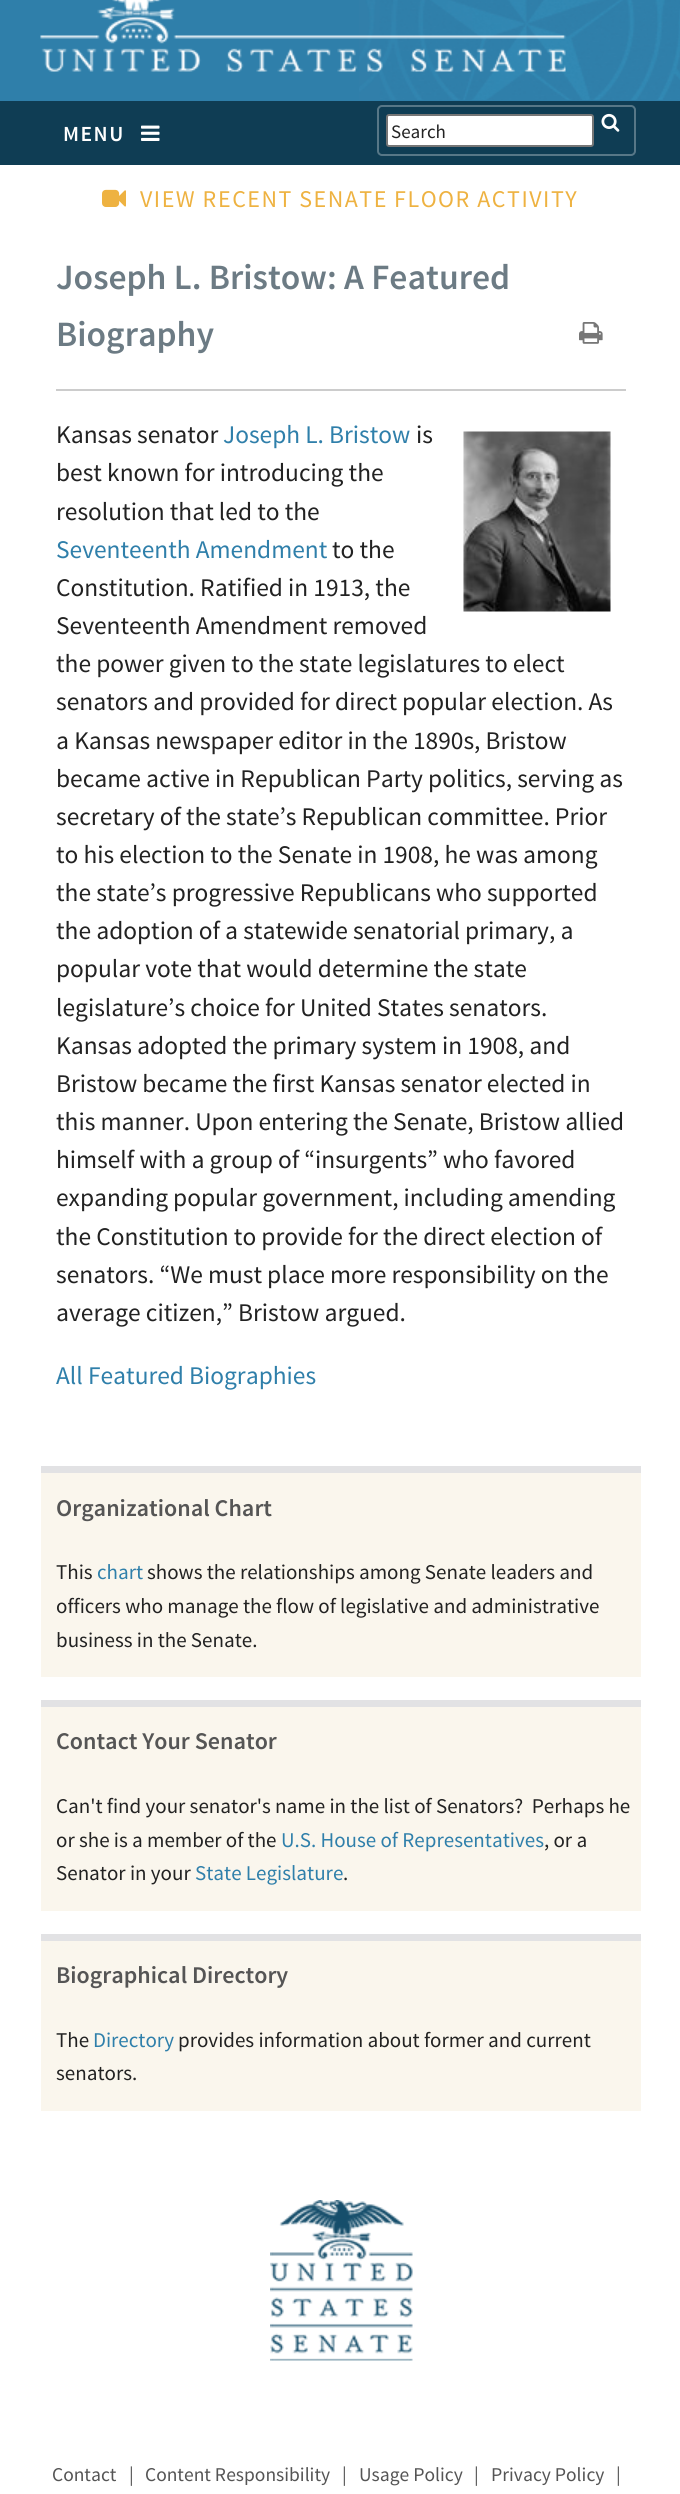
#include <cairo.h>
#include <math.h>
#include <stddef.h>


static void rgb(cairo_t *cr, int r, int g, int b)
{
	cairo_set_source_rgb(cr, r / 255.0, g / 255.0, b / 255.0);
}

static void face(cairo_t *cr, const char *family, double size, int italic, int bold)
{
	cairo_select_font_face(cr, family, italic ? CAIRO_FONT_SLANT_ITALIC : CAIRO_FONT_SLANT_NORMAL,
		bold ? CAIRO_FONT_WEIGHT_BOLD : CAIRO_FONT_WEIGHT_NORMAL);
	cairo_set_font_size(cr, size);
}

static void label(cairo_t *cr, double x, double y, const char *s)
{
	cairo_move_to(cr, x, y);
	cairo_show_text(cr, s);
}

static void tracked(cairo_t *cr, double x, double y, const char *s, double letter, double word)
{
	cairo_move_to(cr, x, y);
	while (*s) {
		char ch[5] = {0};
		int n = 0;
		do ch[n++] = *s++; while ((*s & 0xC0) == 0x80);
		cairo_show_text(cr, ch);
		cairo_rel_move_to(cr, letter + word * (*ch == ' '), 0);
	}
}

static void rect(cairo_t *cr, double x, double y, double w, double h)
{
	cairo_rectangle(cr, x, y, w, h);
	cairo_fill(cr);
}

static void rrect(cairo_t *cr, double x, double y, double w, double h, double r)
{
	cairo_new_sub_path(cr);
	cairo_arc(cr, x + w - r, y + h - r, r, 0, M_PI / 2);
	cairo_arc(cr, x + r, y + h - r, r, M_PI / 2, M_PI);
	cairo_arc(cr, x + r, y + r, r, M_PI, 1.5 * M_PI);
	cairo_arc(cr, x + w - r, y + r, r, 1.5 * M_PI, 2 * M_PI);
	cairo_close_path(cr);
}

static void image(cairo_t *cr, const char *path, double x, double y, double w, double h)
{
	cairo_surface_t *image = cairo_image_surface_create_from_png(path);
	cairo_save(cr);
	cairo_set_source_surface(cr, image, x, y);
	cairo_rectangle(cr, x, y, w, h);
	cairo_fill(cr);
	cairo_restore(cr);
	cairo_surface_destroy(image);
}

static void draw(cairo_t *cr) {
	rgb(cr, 255, 255, 255);
	cairo_paint(cr);
	rgb(cr, 15, 61, 84);
	rect(cr, 0, 101, 680, 64);
	face(cr, "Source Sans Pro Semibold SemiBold", 21.5, 0, 0);
	rgb(cr, 255, 255, 255);
	tracked(cr, 63, 141, "MENU", 1.5, 0);
	image(cr, "image0.png", 141, 125, 19, 16);
	rgb(cr, 47, 127, 170);
	rect(cr, 0, 0, 680, 101);
	image(cr, "image1.png", 359, 0, 321, 100);
	image(cr, "image2.png", 40, 0, 526, 72);
	rrect(cr, 378, 106, 257, 49, 4);
	rgb(cr, 87, 119, 135);
	cairo_stroke(cr);
	rgb(cr, 255, 255, 255);
	rrect(cr, 387, 115, 206, 31, 2);
	cairo_fill_preserve(cr);
	rgb(cr, 118, 118, 118);
	cairo_stroke(cr);
	face(cr, "Source Sans Pro", 19, 0, 0);
	rgb(cr, 34, 34, 34);
	label(cr, 391, 138, "Search");
	image(cr, "image3.png", 601, 113, 19, 19);
	image(cr, "image4.png", 102, 189, 24, 18);
	face(cr, "Source Sans Pro", 24, 0, 0);
	rgb(cr, 238, 178, 65);
	tracked(cr, 140, 207, "VIEW RECENT SENATE FLOOR ACTIVITY", 1.5, 0);
	face(cr, "Source Sans Pro Semibold SemiBold", 35.6, 0, 0);
	rgb(cr, 108, 123, 132);
	label(cr, 56, 289, "Joseph L. Bristow: A Featured");
	label(cr, 56, 346, "Biography");
	image(cr, "image5.png", 579, 322, 24, 22);
	rgb(cr, 204, 204, 204);
	rect(cr, 56, 389, 570, 2);
	face(cr, "Source Sans Pro", 25.4, 0, 0);
	rgb(cr, 34, 34, 34);
	label(cr, 56, 443, "Kansas senator");
	rgb(cr, 47, 127, 170);
	label(cr, 223, 443, "Joseph L. Bristow");
	rgb(cr, 34, 34, 34);
	label(cr, 416, 443, "is");
	label(cr, 56, 481, "best known for introducing the");
	label(cr, 56, 520, "resolution that led to the");
	rgb(cr, 47, 127, 170);
	label(cr, 56, 558, "Seventeenth Amendment");
	rgb(cr, 34, 34, 34);
	label(cr, 332, 558, "to the");
	label(cr, 56, 596, "Constitution. Ratified in 1913, the");
	label(cr, 56, 634, "Seventeenth Amendment removed");
	label(cr, 56, 672, "the power given to the state legislatures to elect");
	label(cr, 56, 710, "senators and provided for direct popular election. As");
	label(cr, 56, 749, "a Kansas newspaper editor in the 1890s, Bristow");
	label(cr, 56, 787, "became active in Republican Party politics, serving as");
	label(cr, 56, 825, "secretary of the state’s Republican committee. Prior");
	label(cr, 56, 863, "to his election to the Senate in 1908, he was among");
	label(cr, 56, 901, "the state’s progressive Republicans who supported");
	label(cr, 56, 939, "the adoption of a statewide senatorial primary, a");
	label(cr, 56, 977, "popular vote that would determine the state");
	label(cr, 56, 1016, "legislature’s choice for United States senators.");
	label(cr, 56, 1054, "Kansas adopted the primary system in 1908, and");
	label(cr, 56, 1092, "Bristow became the first Kansas senator elected in");
	label(cr, 56, 1130, "this manner. Upon entering the Senate, Bristow allied");
	label(cr, 56, 1168, "himself with a group of “insurgents” who favored");
	label(cr, 56, 1206, "expanding popular government, including amending");
	label(cr, 56, 1245, "the Constitution to provide for the direct election of");
	label(cr, 56, 1283, "senators. “We must place more responsibility on the");
	label(cr, 56, 1321, "average citizen,” Bristow argued.");
	rgb(cr, 47, 127, 170);
	label(cr, 56, 1384, "All Featured Biographies");
	image(cr, "image6.png", 463, 431, 148, 181);
	rgb(cr, 250, 246, 237);
	rect(cr, 41, 1473, 600, 204);
	rgb(cr, 226, 226, 228);
	rect(cr, 41, 1466, 600, 7);
	face(cr, "Source Sans Pro Semibold SemiBold", 24, 0, 0);
	rgb(cr, 85, 85, 85);
	label(cr, 56, 1516, "Organizational Chart");
	face(cr, "Source Sans Pro", 21, 0, 0);
	rgb(cr, 34, 34, 34);
	label(cr, 56, 1579, "This");
	rgb(cr, 47, 127, 170);
	label(cr, 97, 1579, "chart");
	rgb(cr, 34, 34, 34);
	label(cr, 147, 1579, "shows the relationships among Senate leaders and");
	label(cr, 56, 1613, "officers who manage the flow of legislative and administrative");
	label(cr, 56, 1647, "business in the Senate.");
	rgb(cr, 250, 246, 237);
	rect(cr, 41, 1707, 600, 204);
	rgb(cr, 226, 226, 228);
	rect(cr, 41, 1700, 600, 7);
	face(cr, "Source Sans Pro Semibold SemiBold", 24, 0, 0);
	rgb(cr, 85, 85, 85);
	label(cr, 56, 1749, "Contact Your Senator");
	face(cr, "Source Sans Pro", 21, 0, 0);
	rgb(cr, 34, 34, 34);
	label(cr, 56, 1813, "Can't find your senator's name in the list of Senators?  Perhaps he");
	label(cr, 56, 1847, "or she is a member of the");
	rgb(cr, 47, 127, 170);
	label(cr, 281, 1847, "U.S. House of Representatives");
	rgb(cr, 34, 34, 34);
	label(cr, 544, 1847, ", or a");
	label(cr, 56, 1880, "Senator in your");
	rgb(cr, 47, 127, 170);
	label(cr, 195, 1880, "State Legislature");
	rgb(cr, 34, 34, 34);
	label(cr, 343, 1880, ".");
	rgb(cr, 250, 246, 237);
	rect(cr, 41, 1941, 600, 170);
	rgb(cr, 226, 226, 228);
	rect(cr, 41, 1934, 600, 7);
	face(cr, "Source Sans Pro Semibold SemiBold", 24, 0, 0);
	rgb(cr, 85, 85, 85);
	label(cr, 56, 1983, "Biographical Directory");
	face(cr, "Source Sans Pro", 21, 0, 0);
	rgb(cr, 34, 34, 34);
	label(cr, 56, 2047, "The");
	rgb(cr, 47, 127, 170);
	label(cr, 93, 2047, "Directory");
	rgb(cr, 34, 34, 34);
	label(cr, 178, 2047, "provides information about former and current");
	label(cr, 56, 2080, "senators.");
	image(cr, "image7.png", 270, 2200, 143, 161);
	face(cr, "Source Sans Pro", 19.5, 0, 0);
	rgb(cr, 85, 85, 85);
	label(cr, 52, 2481, "Contact");
	label(cr, 129, 2481, "|");
	label(cr, 145, 2481, "Content Responsibility");
	label(cr, 342, 2481, "|");
	label(cr, 359, 2481, "Usage Policy");
	label(cr, 474, 2481, "|");
	label(cr, 491, 2481, "Privacy Policy");
	label(cr, 616, 2481, "|");
}

int main(void) {
	cairo_surface_t *surface = cairo_image_surface_create(CAIRO_FORMAT_RGB24, 680, 2494);
	cairo_t *cr = cairo_create(surface);
	cairo_font_options_t *options = cairo_font_options_create();
	cairo_font_options_set_hint_metrics(options, CAIRO_HINT_METRICS_OFF);
	cairo_font_options_set_hint_style(options, CAIRO_HINT_STYLE_NONE);
	cairo_set_font_options(cr, options);
	cairo_set_miter_limit(cr, 4);
	draw(cr);
	cairo_surface_write_to_png(surface, "render.png");
	cairo_font_options_destroy(options);
	cairo_destroy(cr);
	cairo_surface_destroy(surface);
	return 0;
}
